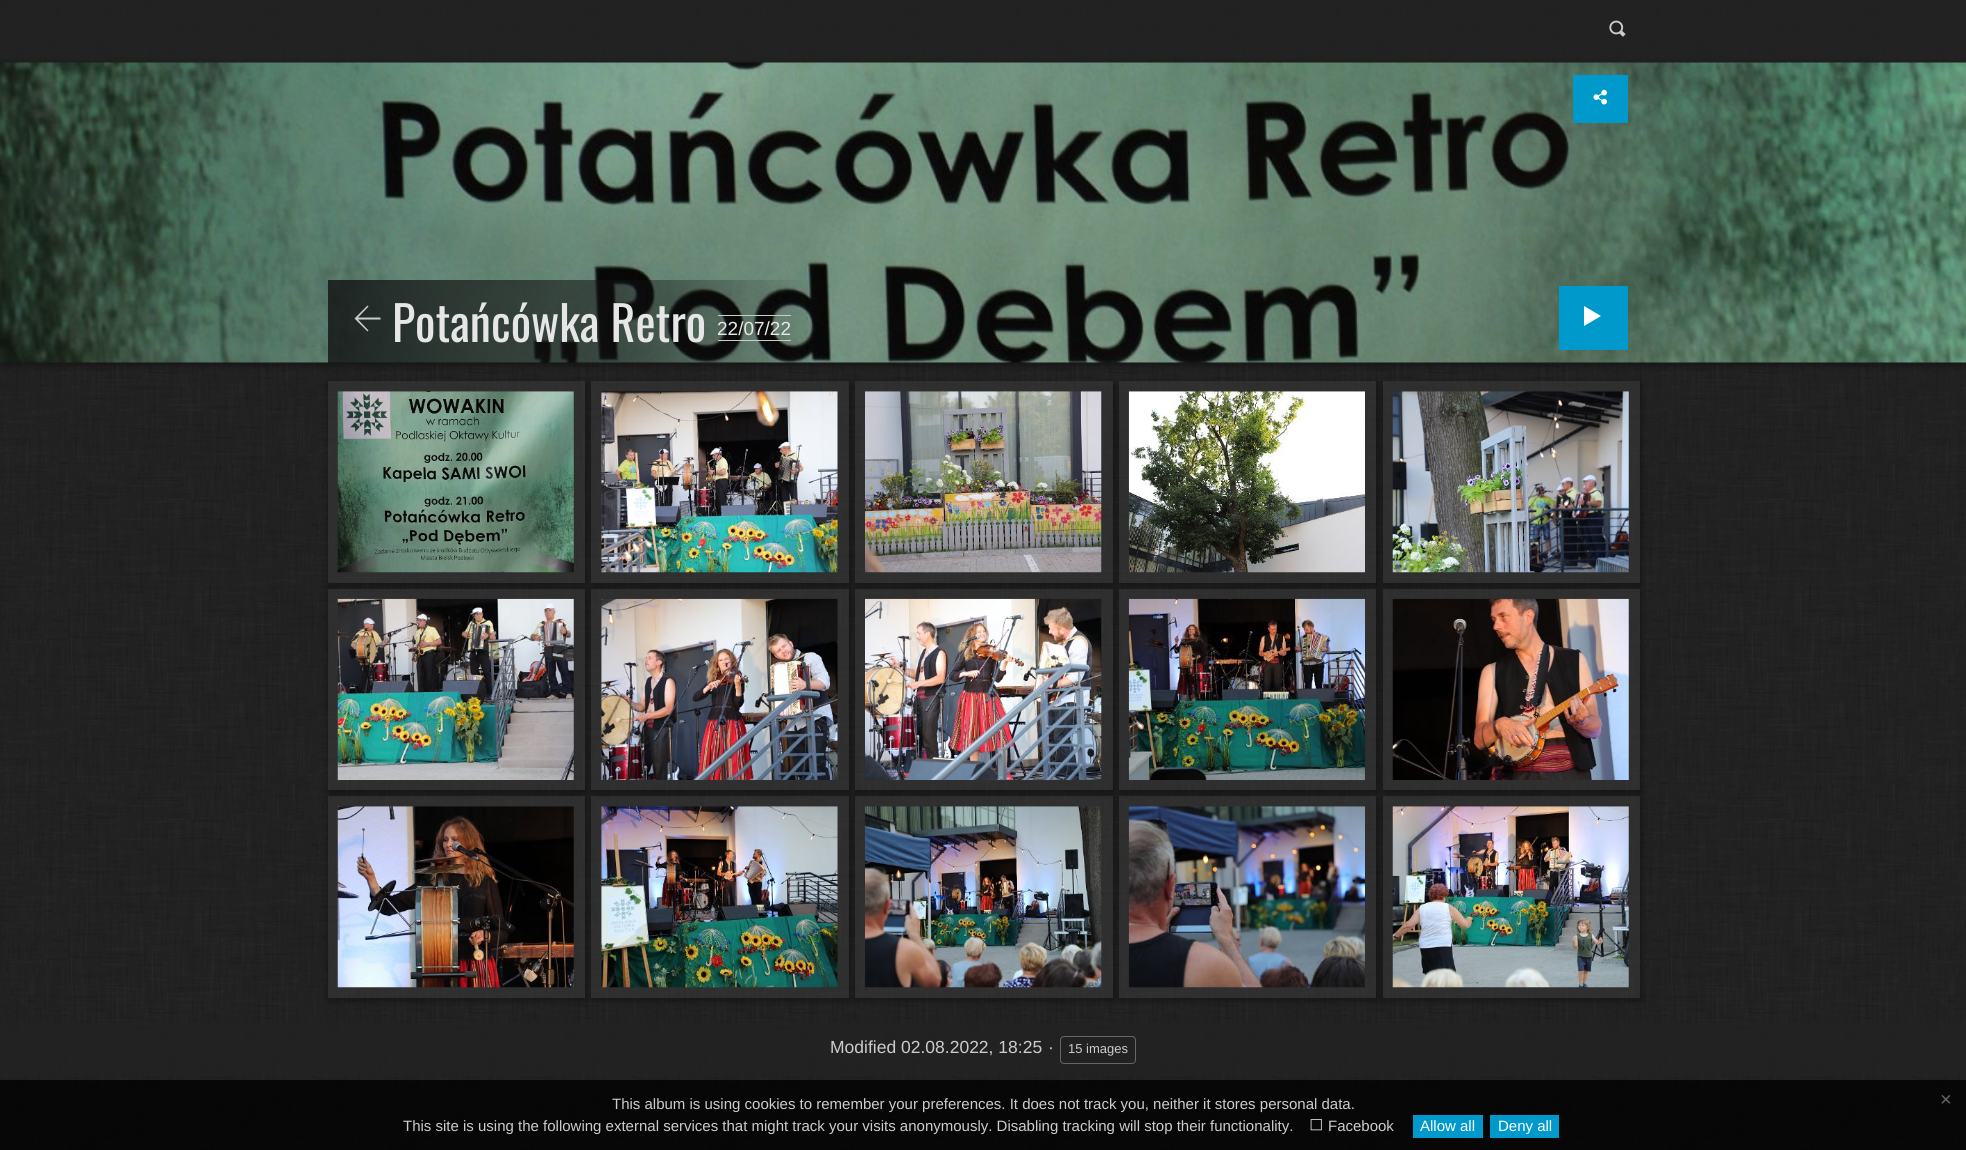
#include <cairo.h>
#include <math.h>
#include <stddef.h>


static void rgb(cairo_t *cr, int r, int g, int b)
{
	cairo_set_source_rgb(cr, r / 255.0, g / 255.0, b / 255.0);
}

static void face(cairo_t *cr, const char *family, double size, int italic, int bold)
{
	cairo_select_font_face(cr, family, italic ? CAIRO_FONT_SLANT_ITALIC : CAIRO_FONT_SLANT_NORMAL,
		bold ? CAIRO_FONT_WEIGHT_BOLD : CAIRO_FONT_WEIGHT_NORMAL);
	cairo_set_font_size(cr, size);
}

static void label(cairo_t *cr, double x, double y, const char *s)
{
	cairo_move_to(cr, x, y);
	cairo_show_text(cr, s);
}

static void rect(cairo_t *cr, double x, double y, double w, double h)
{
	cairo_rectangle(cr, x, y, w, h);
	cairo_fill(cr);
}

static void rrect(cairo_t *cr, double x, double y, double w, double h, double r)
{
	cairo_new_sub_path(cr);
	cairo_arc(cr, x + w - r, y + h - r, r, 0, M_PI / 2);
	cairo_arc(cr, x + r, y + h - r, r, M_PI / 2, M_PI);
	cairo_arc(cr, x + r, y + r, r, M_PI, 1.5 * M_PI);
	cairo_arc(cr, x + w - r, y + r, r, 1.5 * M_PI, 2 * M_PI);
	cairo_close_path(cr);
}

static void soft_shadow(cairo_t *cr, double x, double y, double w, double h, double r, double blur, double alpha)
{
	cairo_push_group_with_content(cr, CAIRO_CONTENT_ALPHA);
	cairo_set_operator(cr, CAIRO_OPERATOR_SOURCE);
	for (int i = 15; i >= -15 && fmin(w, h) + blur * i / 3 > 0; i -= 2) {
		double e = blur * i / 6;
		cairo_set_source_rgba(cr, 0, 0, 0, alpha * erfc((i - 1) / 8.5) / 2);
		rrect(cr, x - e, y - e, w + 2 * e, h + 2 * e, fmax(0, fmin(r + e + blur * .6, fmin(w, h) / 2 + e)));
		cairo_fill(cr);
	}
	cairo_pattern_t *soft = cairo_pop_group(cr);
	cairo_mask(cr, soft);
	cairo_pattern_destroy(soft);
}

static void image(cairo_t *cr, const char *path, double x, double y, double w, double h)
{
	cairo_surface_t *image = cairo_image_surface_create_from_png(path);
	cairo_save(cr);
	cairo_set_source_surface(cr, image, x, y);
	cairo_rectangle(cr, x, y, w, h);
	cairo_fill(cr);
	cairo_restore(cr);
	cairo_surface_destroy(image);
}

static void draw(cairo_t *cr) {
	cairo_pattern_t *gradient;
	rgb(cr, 34, 34, 34);
	cairo_paint(cr);
	image(cr, "image0.png", 0, 0, 1966, 1150);
	cairo_set_source_rgba(cr, 0.133, 0.133, 0.133, 0.8);
	rect(cr, 1, 0, 1965, 63);
	image(cr, "image1.png", 1609, 20, 17, 17);
	rgb(cr, 0, 0, 0);
	soft_shadow(cr, 1, 65, 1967, 300, 0, 4, 0.45);
	image(cr, "image2.png", 0, 62, 1966, 301);
	rgb(cr, 0, 153, 204);
	rect(cr, 1573, 75, 55, 48);
	image(cr, "image3.png", 1593, 89, 14, 16);
	gradient = cairo_pattern_create_linear(328, 321, 816, 321);
	cairo_pattern_add_color_stop_rgba(gradient, 0, 0.067, 0.067, 0.067, 0.8);
	cairo_pattern_add_color_stop_rgba(gradient, 0.6, 0.067, 0.067, 0.067, 0.5);
	cairo_pattern_add_color_stop_rgba(gradient, 1, 0.067, 0.067, 0.067, 0);
	cairo_set_source(cr, gradient);
	cairo_pattern_destroy(gradient);
	rect(cr, 328, 280, 480, 83);
	rgb(cr, 204, 204, 204);
	cairo_new_path(cr);
	cairo_move_to(cr, 354.5, 318.5);
	cairo_line_to(cr, 367.5, 305.5);
	cairo_line_to(cr, 368.5, 306.5);
	cairo_line_to(cr, 358, 317.5);
	cairo_line_to(cr, 380.5, 317.5);
	cairo_line_to(cr, 380.5, 319.5);
	cairo_line_to(cr, 358, 319.5);
	cairo_line_to(cr, 368.5, 330.5);
	cairo_line_to(cr, 367.5, 331.5);
	cairo_close_path(cr);
	cairo_fill(cr);
	face(cr, "Oswald", 48, 0, 0);
	rgb(cr, 230, 230, 230);
	label(cr, 392, 342, "Potańcówka Retro");
	rgb(cr, 204, 204, 204);
	rect(cr, 718, 315, 73, 1);
	rect(cr, 718, 340, 73, 1);
	face(cr, "Liberation Sans", 19, 0, 0);
	rgb(cr, 230, 230, 230);
	label(cr, 717, 335, "22/07/22");
	rgb(cr, 0, 153, 204);
	rect(cr, 1559, 286, 69, 64);
	rgb(cr, 255, 255, 255);
	cairo_new_path(cr);
	cairo_move_to(cr, 1601, 316);
	cairo_line_to(cr, 1584, 326);
	cairo_line_to(cr, 1584, 306);
	cairo_close_path(cr);
	cairo_fill(cr);
	cairo_save(cr);
	cairo_set_fill_rule(cr, CAIRO_FILL_RULE_EVEN_ODD);
	cairo_new_path(cr);
	cairo_move_to(cr, 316, 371);
	cairo_line_to(cr, 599, 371);
	cairo_line_to(cr, 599, 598);
	cairo_line_to(cr, 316, 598);
	cairo_close_path(cr);
	cairo_move_to(cr, 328, 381);
	cairo_line_to(cr, 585, 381);
	cairo_line_to(cr, 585, 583);
	cairo_line_to(cr, 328, 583);
	cairo_close_path(cr);
	cairo_clip(cr);
	rgb(cr, 0, 0, 0);
	soft_shadow(cr, 329, 384, 257, 201, 0, 4, 0.45);
	cairo_restore(cr);
	cairo_set_source_rgba(cr, 0.267, 0.267, 0.267, 0.4);
	rect(cr, 328, 381, 257, 202);
	image(cr, "image4.png", 337, 391, 237, 182);
	cairo_save(cr);
	cairo_set_fill_rule(cr, CAIRO_FILL_RULE_EVEN_ODD);
	cairo_new_path(cr);
	cairo_move_to(cr, 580, 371);
	cairo_line_to(cr, 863, 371);
	cairo_line_to(cr, 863, 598);
	cairo_line_to(cr, 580, 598);
	cairo_close_path(cr);
	cairo_move_to(cr, 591, 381);
	cairo_line_to(cr, 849, 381);
	cairo_line_to(cr, 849, 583);
	cairo_line_to(cr, 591, 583);
	cairo_close_path(cr);
	cairo_clip(cr);
	rgb(cr, 0, 0, 0);
	soft_shadow(cr, 593, 384, 257, 201, 0, 4, 0.45);
	cairo_restore(cr);
	rect(cr, 591, 381, 258, 202);
	image(cr, "image5.png", 601, 391, 237, 182);
	cairo_save(cr);
	cairo_set_fill_rule(cr, CAIRO_FILL_RULE_EVEN_ODD);
	cairo_new_path(cr);
	cairo_move_to(cr, 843, 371);
	cairo_line_to(cr, 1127, 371);
	cairo_line_to(cr, 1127, 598);
	cairo_line_to(cr, 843, 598);
	cairo_close_path(cr);
	cairo_move_to(cr, 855, 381);
	cairo_line_to(cr, 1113, 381);
	cairo_line_to(cr, 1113, 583);
	cairo_line_to(cr, 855, 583);
	cairo_close_path(cr);
	cairo_clip(cr);
	rgb(cr, 0, 0, 0);
	soft_shadow(cr, 856, 384, 258, 201, 0, 4, 0.45);
	cairo_restore(cr);
	rect(cr, 855, 381, 258, 202);
	image(cr, "image6.png", 865, 391, 237, 182);
	cairo_save(cr);
	cairo_set_fill_rule(cr, CAIRO_FILL_RULE_EVEN_ODD);
	cairo_new_path(cr);
	cairo_move_to(cr, 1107, 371);
	cairo_line_to(cr, 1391, 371);
	cairo_line_to(cr, 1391, 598);
	cairo_line_to(cr, 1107, 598);
	cairo_close_path(cr);
	cairo_move_to(cr, 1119, 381);
	cairo_line_to(cr, 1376, 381);
	cairo_line_to(cr, 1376, 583);
	cairo_line_to(cr, 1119, 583);
	cairo_close_path(cr);
	cairo_clip(cr);
	rgb(cr, 0, 0, 0);
	soft_shadow(cr, 1120, 384, 258, 201, 0, 4, 0.45);
	cairo_restore(cr);
	rect(cr, 1119, 381, 257, 202);
	image(cr, "image7.png", 1128, 391, 237, 182);
	cairo_save(cr);
	cairo_set_fill_rule(cr, CAIRO_FILL_RULE_EVEN_ODD);
	cairo_new_path(cr);
	cairo_move_to(cr, 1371, 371);
	cairo_line_to(cr, 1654, 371);
	cairo_line_to(cr, 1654, 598);
	cairo_line_to(cr, 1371, 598);
	cairo_close_path(cr);
	cairo_move_to(cr, 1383, 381);
	cairo_line_to(cr, 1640, 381);
	cairo_line_to(cr, 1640, 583);
	cairo_line_to(cr, 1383, 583);
	cairo_close_path(cr);
	cairo_clip(cr);
	rgb(cr, 0, 0, 0);
	soft_shadow(cr, 1384, 384, 257, 201, 0, 4, 0.45);
	cairo_restore(cr);
	rect(cr, 1383, 381, 257, 202);
	image(cr, "image8.png", 1392, 391, 237, 182);
	cairo_save(cr);
	cairo_set_fill_rule(cr, CAIRO_FILL_RULE_EVEN_ODD);
	cairo_new_path(cr);
	cairo_move_to(cr, 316, 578);
	cairo_line_to(cr, 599, 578);
	cairo_line_to(cr, 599, 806);
	cairo_line_to(cr, 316, 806);
	cairo_close_path(cr);
	cairo_move_to(cr, 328, 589);
	cairo_line_to(cr, 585, 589);
	cairo_line_to(cr, 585, 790);
	cairo_line_to(cr, 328, 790);
	cairo_close_path(cr);
	cairo_clip(cr);
	rgb(cr, 0, 0, 0);
	soft_shadow(cr, 329, 591, 257, 202, 0, 4, 0.45);
	cairo_restore(cr);
	rect(cr, 328, 589, 257, 201);
	image(cr, "image9.png", 337, 598, 237, 182);
	cairo_save(cr);
	cairo_set_fill_rule(cr, CAIRO_FILL_RULE_EVEN_ODD);
	cairo_new_path(cr);
	cairo_move_to(cr, 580, 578);
	cairo_line_to(cr, 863, 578);
	cairo_line_to(cr, 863, 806);
	cairo_line_to(cr, 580, 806);
	cairo_close_path(cr);
	cairo_move_to(cr, 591, 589);
	cairo_line_to(cr, 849, 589);
	cairo_line_to(cr, 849, 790);
	cairo_line_to(cr, 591, 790);
	cairo_close_path(cr);
	cairo_clip(cr);
	rgb(cr, 0, 0, 0);
	soft_shadow(cr, 593, 591, 257, 202, 0, 4, 0.45);
	cairo_restore(cr);
	rect(cr, 591, 589, 258, 201);
	image(cr, "image10.png", 601, 598, 237, 182);
	cairo_save(cr);
	cairo_set_fill_rule(cr, CAIRO_FILL_RULE_EVEN_ODD);
	cairo_new_path(cr);
	cairo_move_to(cr, 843, 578);
	cairo_line_to(cr, 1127, 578);
	cairo_line_to(cr, 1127, 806);
	cairo_line_to(cr, 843, 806);
	cairo_close_path(cr);
	cairo_move_to(cr, 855, 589);
	cairo_line_to(cr, 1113, 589);
	cairo_line_to(cr, 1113, 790);
	cairo_line_to(cr, 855, 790);
	cairo_close_path(cr);
	cairo_clip(cr);
	rgb(cr, 0, 0, 0);
	soft_shadow(cr, 856, 591, 258, 202, 0, 4, 0.45);
	cairo_restore(cr);
	rect(cr, 855, 589, 258, 201);
	image(cr, "image11.png", 865, 598, 237, 182);
	cairo_save(cr);
	cairo_set_fill_rule(cr, CAIRO_FILL_RULE_EVEN_ODD);
	cairo_new_path(cr);
	cairo_move_to(cr, 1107, 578);
	cairo_line_to(cr, 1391, 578);
	cairo_line_to(cr, 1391, 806);
	cairo_line_to(cr, 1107, 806);
	cairo_close_path(cr);
	cairo_move_to(cr, 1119, 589);
	cairo_line_to(cr, 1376, 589);
	cairo_line_to(cr, 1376, 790);
	cairo_line_to(cr, 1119, 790);
	cairo_close_path(cr);
	cairo_clip(cr);
	rgb(cr, 0, 0, 0);
	soft_shadow(cr, 1120, 591, 258, 202, 0, 4, 0.45);
	cairo_restore(cr);
	rect(cr, 1119, 589, 257, 201);
	image(cr, "image12.png", 1128, 598, 237, 182);
	cairo_save(cr);
	cairo_set_fill_rule(cr, CAIRO_FILL_RULE_EVEN_ODD);
	cairo_new_path(cr);
	cairo_move_to(cr, 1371, 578);
	cairo_line_to(cr, 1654, 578);
	cairo_line_to(cr, 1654, 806);
	cairo_line_to(cr, 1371, 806);
	cairo_close_path(cr);
	cairo_move_to(cr, 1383, 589);
	cairo_line_to(cr, 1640, 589);
	cairo_line_to(cr, 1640, 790);
	cairo_line_to(cr, 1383, 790);
	cairo_close_path(cr);
	cairo_clip(cr);
	rgb(cr, 0, 0, 0);
	soft_shadow(cr, 1384, 591, 257, 202, 0, 4, 0.45);
	cairo_restore(cr);
	rect(cr, 1383, 589, 257, 201);
	image(cr, "image13.png", 1392, 598, 237, 182);
	cairo_save(cr);
	cairo_set_fill_rule(cr, CAIRO_FILL_RULE_EVEN_ODD);
	cairo_new_path(cr);
	cairo_move_to(cr, 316, 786);
	cairo_line_to(cr, 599, 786);
	cairo_line_to(cr, 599, 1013);
	cairo_line_to(cr, 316, 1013);
	cairo_close_path(cr);
	cairo_move_to(cr, 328, 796);
	cairo_line_to(cr, 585, 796);
	cairo_line_to(cr, 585, 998);
	cairo_line_to(cr, 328, 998);
	cairo_close_path(cr);
	cairo_clip(cr);
	rgb(cr, 0, 0, 0);
	soft_shadow(cr, 329, 799, 257, 201, 0, 4, 0.45);
	cairo_restore(cr);
	rect(cr, 328, 796, 257, 202);
	image(cr, "image14.png", 337, 806, 237, 182);
	cairo_save(cr);
	cairo_set_fill_rule(cr, CAIRO_FILL_RULE_EVEN_ODD);
	cairo_new_path(cr);
	cairo_move_to(cr, 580, 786);
	cairo_line_to(cr, 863, 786);
	cairo_line_to(cr, 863, 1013);
	cairo_line_to(cr, 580, 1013);
	cairo_close_path(cr);
	cairo_move_to(cr, 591, 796);
	cairo_line_to(cr, 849, 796);
	cairo_line_to(cr, 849, 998);
	cairo_line_to(cr, 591, 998);
	cairo_close_path(cr);
	cairo_clip(cr);
	rgb(cr, 0, 0, 0);
	soft_shadow(cr, 593, 799, 257, 201, 0, 4, 0.45);
	cairo_restore(cr);
	rect(cr, 591, 796, 258, 202);
	image(cr, "image15.png", 601, 806, 237, 182);
	cairo_save(cr);
	cairo_set_fill_rule(cr, CAIRO_FILL_RULE_EVEN_ODD);
	cairo_new_path(cr);
	cairo_move_to(cr, 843, 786);
	cairo_line_to(cr, 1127, 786);
	cairo_line_to(cr, 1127, 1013);
	cairo_line_to(cr, 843, 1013);
	cairo_close_path(cr);
	cairo_move_to(cr, 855, 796);
	cairo_line_to(cr, 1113, 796);
	cairo_line_to(cr, 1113, 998);
	cairo_line_to(cr, 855, 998);
	cairo_close_path(cr);
	cairo_clip(cr);
	rgb(cr, 0, 0, 0);
	soft_shadow(cr, 856, 799, 258, 201, 0, 4, 0.45);
	cairo_restore(cr);
	rect(cr, 855, 796, 258, 202);
	image(cr, "image16.png", 865, 806, 237, 182);
	cairo_save(cr);
	cairo_set_fill_rule(cr, CAIRO_FILL_RULE_EVEN_ODD);
	cairo_new_path(cr);
	cairo_move_to(cr, 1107, 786);
	cairo_line_to(cr, 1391, 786);
	cairo_line_to(cr, 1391, 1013);
	cairo_line_to(cr, 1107, 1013);
	cairo_close_path(cr);
	cairo_move_to(cr, 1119, 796);
	cairo_line_to(cr, 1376, 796);
	cairo_line_to(cr, 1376, 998);
	cairo_line_to(cr, 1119, 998);
	cairo_close_path(cr);
	cairo_clip(cr);
	rgb(cr, 0, 0, 0);
	soft_shadow(cr, 1120, 799, 258, 201, 0, 4, 0.45);
	cairo_restore(cr);
	rect(cr, 1119, 796, 257, 202);
	image(cr, "image17.png", 1128, 806, 237, 182);
	cairo_save(cr);
	cairo_set_fill_rule(cr, CAIRO_FILL_RULE_EVEN_ODD);
	cairo_new_path(cr);
	cairo_move_to(cr, 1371, 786);
	cairo_line_to(cr, 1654, 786);
	cairo_line_to(cr, 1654, 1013);
	cairo_line_to(cr, 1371, 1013);
	cairo_close_path(cr);
	cairo_move_to(cr, 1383, 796);
	cairo_line_to(cr, 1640, 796);
	cairo_line_to(cr, 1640, 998);
	cairo_line_to(cr, 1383, 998);
	cairo_close_path(cr);
	cairo_clip(cr);
	rgb(cr, 0, 0, 0);
	soft_shadow(cr, 1384, 799, 257, 201, 0, 4, 0.45);
	cairo_restore(cr);
	rect(cr, 1383, 796, 257, 202);
	image(cr, "image18.png", 1392, 806, 237, 182);
	cairo_set_source_rgba(cr, 0.133, 0.133, 0.133, 0.8);
	rect(cr, 0, 1023, 1966, 53);
	face(cr, "Liberation Sans", 17.5, 0, 0);
	rgb(cr, 204, 204, 204);
	label(cr, 830, 1053, "Modified 02.08.2022, 18:25");
	label(cr, 1048, 1053, "·");
	rrect(cr, 1060.5, 1036.5, 75, 27, 3.5);
	rgb(cr, 102, 102, 102);
	cairo_set_line_width(cr, 1);
	cairo_stroke(cr);
	face(cr, "Liberation Sans", 13, 0, 0);
	rgb(cr, 204, 204, 204);
	label(cr, 1068, 1053, "15 images");
	cairo_set_source_rgba(cr, 0, 0, 0, 0.8);
	rect(cr, 0, 1080, 1966, 70);
	face(cr, "Liberation Sans", 15, 0, 0);
	rgb(cr, 204, 204, 204);
	label(cr, 612, 1109, "This album is using cookies to remember your preferences. It does not track you, neither it stores personal data.");
	face(cr, "Liberation Sans", 20, 0, 0);
	rgb(cr, 102, 102, 102);
	label(cr, 1940, 1106, "×");
	face(cr, "Liberation Sans", 15, 0, 0);
	rgb(cr, 204, 204, 204);
	label(cr, 403, 1131, "This site is using the following external services that might track your visits anonymously. Disabling tracking will stop their functionality.");
	image(cr, "image19.png", 1310, 1119, 12, 12);
	label(cr, 1328, 1131, "Facebook");
	rgb(cr, 0, 153, 204);
	rect(cr, 1413, 1115, 70, 23);
	rgb(cr, 255, 255, 255);
	label(cr, 1420, 1131, "Allow all");
	rgb(cr, 0, 153, 204);
	rect(cr, 1490, 1115, 69, 23);
	rgb(cr, 255, 255, 255);
	label(cr, 1498, 1131, "Deny all");
}

int main(void) {
	cairo_surface_t *surface = cairo_image_surface_create(CAIRO_FORMAT_RGB24, 1966, 1150);
	cairo_t *cr = cairo_create(surface);
	cairo_font_options_t *options = cairo_font_options_create();
	cairo_font_options_set_hint_metrics(options, CAIRO_HINT_METRICS_OFF);
	cairo_font_options_set_hint_style(options, CAIRO_HINT_STYLE_NONE);
	cairo_set_font_options(cr, options);
	cairo_set_miter_limit(cr, 4);
	draw(cr);
	cairo_surface_write_to_png(surface, "render.png");
	cairo_font_options_destroy(options);
	cairo_destroy(cr);
	cairo_surface_destroy(surface);
	return 0;
}
